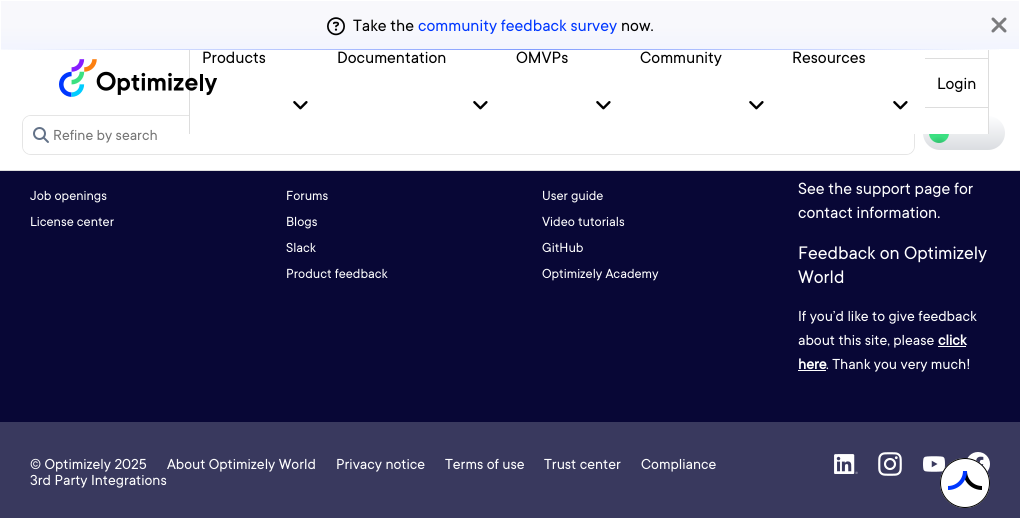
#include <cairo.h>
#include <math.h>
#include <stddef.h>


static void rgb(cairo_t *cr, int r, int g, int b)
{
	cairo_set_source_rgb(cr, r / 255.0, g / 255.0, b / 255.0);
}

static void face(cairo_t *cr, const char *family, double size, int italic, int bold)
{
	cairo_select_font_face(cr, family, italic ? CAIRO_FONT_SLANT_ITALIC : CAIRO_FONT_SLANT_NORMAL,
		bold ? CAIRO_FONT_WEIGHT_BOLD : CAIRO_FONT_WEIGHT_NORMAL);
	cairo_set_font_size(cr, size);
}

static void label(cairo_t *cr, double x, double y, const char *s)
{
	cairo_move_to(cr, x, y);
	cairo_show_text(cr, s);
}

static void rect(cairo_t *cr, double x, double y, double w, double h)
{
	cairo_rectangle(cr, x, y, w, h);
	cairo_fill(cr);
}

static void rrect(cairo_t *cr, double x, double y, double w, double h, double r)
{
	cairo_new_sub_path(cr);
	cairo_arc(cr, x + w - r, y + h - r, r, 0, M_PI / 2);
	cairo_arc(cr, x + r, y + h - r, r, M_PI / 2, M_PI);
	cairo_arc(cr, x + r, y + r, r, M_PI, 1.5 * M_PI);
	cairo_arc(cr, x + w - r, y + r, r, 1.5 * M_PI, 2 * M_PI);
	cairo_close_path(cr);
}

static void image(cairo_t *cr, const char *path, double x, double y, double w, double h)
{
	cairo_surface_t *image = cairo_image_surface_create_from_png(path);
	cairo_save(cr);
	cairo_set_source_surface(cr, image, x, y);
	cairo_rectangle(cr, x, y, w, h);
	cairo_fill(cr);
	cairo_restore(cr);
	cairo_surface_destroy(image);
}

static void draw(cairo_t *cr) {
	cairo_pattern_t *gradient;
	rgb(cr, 8, 7, 54);
	cairo_paint(cr);
	rgb(cr, 255, 255, 255);
	rect(cr, 0, 0, 1020, 170);
	image(cr, "image0.png", 1, 49, 998, 1);
	gradient = cairo_pattern_create_linear(510, 0.9, 510, 59);
	cairo_pattern_add_color_stop_rgba(gradient, 0.42, 0.973, 0.973, 0.988, 1);
	cairo_pattern_add_color_stop_rgba(gradient, 1, 0.941, 0.953, 1, 1);
	cairo_set_source(cr, gradient);
	cairo_pattern_destroy(gradient);
	rect(cr, 1, 1, 1018, 48);
	image(cr, "image1.png", 327, 17, 18, 19);
	face(cr, "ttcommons", 18, 0, 0);
	rgb(cr, 0, 0, 0);
	label(cr, 353, 31, "Take the");
	rgb(cr, 0, 55, 255);
	label(cr, 418, 31, "community feedback survey");
	rgb(cr, 0, 0, 0);
	label(cr, 621, 31, "now.");
	image(cr, "image2.png", 991, 17, 16, 16);
	rgb(cr, 221, 221, 221);
	rect(cr, 0, 170, 1020, 1);
	rrect(cr, 22.5, 115.5, 892, 39, 8.5);
	rgb(cr, 229, 229, 229);
	cairo_set_line_width(cr, 1);
	cairo_stroke(cr);
	rgb(cr, 255, 255, 255);
	rrect(cr, 23, 116, 891, 38, 8);
	cairo_fill(cr);
	rgb(cr, 221, 221, 221);
	rect(cr, 189, 50, 1, 84);
	image(cr, "image3.png", 59, 59, 158, 38);
	gradient = cairo_pattern_create_linear(964, 116, 964, 150);
	cairo_pattern_add_color_stop_rgba(gradient, 0, 0.992, 0.992, 0.996, 1);
	cairo_pattern_add_color_stop_rgba(gradient, 1, 0.855, 0.867, 0.882, 1);
	cairo_set_source(cr, gradient);
	cairo_pattern_destroy(gradient);
	rrect(cr, 923, 116, 82, 34, 17);
	cairo_fill(cr);
	gradient = cairo_pattern_create_radial(939, 146, 0, 939, 146, 23);
	cairo_pattern_add_color_stop_rgba(gradient, 0, 0.184, 0.702, 0.404, 1);
	cairo_pattern_add_color_stop_rgba(gradient, 0.44, 0.231, 0.878, 0.506, 1);
	cairo_set_source(cr, gradient);
	cairo_pattern_destroy(gradient);
	cairo_arc(cr, 939, 133, 10, 0, 2 * M_PI);
	cairo_fill(cr);
	rgb(cr, 255, 255, 255);
	rect(cr, 190, 115, 798, 19);
	rgb(cr, 221, 221, 221);
	rect(cr, 988, 50, 1, 84);
	rgb(cr, 0, 0, 0);
	label(cr, 202, 63, "Products");
	image(cr, "image4.png", 293, 101, 15, 9);
	label(cr, 337, 63, "Documentation");
	image(cr, "image4.png", 473, 101, 15, 9);
	label(cr, 516, 63, "OMVPs");
	image(cr, "image4.png", 596, 101, 15, 9);
	label(cr, 640, 63, "Community");
	image(cr, "image4.png", 749, 101, 15, 9);
	label(cr, 792, 63, "Resources");
	image(cr, "image4.png", 893, 101, 15, 9);
	rgb(cr, 221, 221, 221);
	rect(cr, 925, 58, 63, 1);
	rect(cr, 925, 107, 63, 1);
	rgb(cr, 0, 0, 0);
	label(cr, 937, 89, "Login");
	image(cr, "image5.png", 33, 127, 16, 16);
	face(cr, "ttcommons", 16, 0, 0);
	rgb(cr, 117, 117, 117);
	label(cr, 53, 140, "Refine by search");
	face(cr, "ttcommons", 14.5, 0, 0);
	rgb(cr, 255, 255, 255);
	label(cr, 30, 200, "Job openings");
	label(cr, 30, 226, "License center");
	label(cr, 286, 200, "Forums");
	label(cr, 286, 226, "Blogs");
	label(cr, 286, 252, "Slack");
	label(cr, 286, 278, "Product feedback");
	label(cr, 542, 200, "User guide");
	label(cr, 542, 226, "Video tutorials");
	label(cr, 542, 252, "GitHub");
	label(cr, 542, 278, "Optimizely Academy");
	face(cr, "ttcommons", 18, 0, 0);
	label(cr, 798, 194, "See the support page for");
	label(cr, 798, 218, "contact information.");
	face(cr, "ttcommons", 20, 0, 0);
	label(cr, 798, 259, "Feedback on Optimizely");
	label(cr, 798, 283, "World");
	face(cr, "ttcommons", 16, 0, 0);
	label(cr, 798, 321, "If you’d like to give feedback");
	label(cr, 798, 345, "about this site, please");
	face(cr, "ttcommons", 16, 0, 1);
	label(cr, 938, 345, "click");
	rect(cr, 938, 346, 28, 1);
	label(cr, 798, 369, "here");
	rect(cr, 798, 370, 28, 1);
	face(cr, "ttcommons", 16, 0, 0);
	label(cr, 826, 369, ". Thank you very much!");
	rgb(cr, 57, 57, 94);
	rect(cr, 0, 422, 1020, 96);
	rgb(cr, 255, 255, 255);
	label(cr, 30, 469, "© Optimizely 2025");
	label(cr, 167, 469, "About Optimizely World");
	label(cr, 336, 469, "Privacy notice");
	label(cr, 445, 469, "Terms of use");
	label(cr, 544, 469, "Trust center");
	label(cr, 641, 469, "Compliance");
	label(cr, 30, 485, "3rd Party Integrations");
	image(cr, "image6.png", 834, 454, 24, 20);
	image(cr, "image7.png", 878, 452, 24, 24);
	image(cr, "image8.png", 923, 456, 22, 16);
	image(cr, "image9.png", 967, 452, 23, 20);
	cairo_arc(cr, 965, 483, 25, 0, 2 * M_PI);
	cairo_fill(cr);
	cairo_new_path(cr);
	cairo_move_to(cr, 982, 488);
	cairo_curve_to(cr, 972.5, 488, 965, 480.5, 965, 471);
	rgb(cr, 0, 0, 0);
	cairo_set_line_width(cr, 4);
	cairo_stroke(cr);
	cairo_new_path(cr);
	cairo_move_to(cr, 965, 471);
	cairo_curve_to(cr, 965, 480.5, 957.5, 488, 948, 488);
	rgb(cr, 0, 55, 255);
	cairo_stroke(cr);
	cairo_arc(cr, 965, 483, 24.5, 0, 2 * M_PI);
	rgb(cr, 0, 0, 0);
	cairo_set_line_width(cr, 1);
	cairo_stroke(cr);
}

int main(void) {
	cairo_surface_t *surface = cairo_image_surface_create(CAIRO_FORMAT_RGB24, 1020, 518);
	cairo_t *cr = cairo_create(surface);
	cairo_font_options_t *options = cairo_font_options_create();
	cairo_font_options_set_hint_metrics(options, CAIRO_HINT_METRICS_OFF);
	cairo_font_options_set_hint_style(options, CAIRO_HINT_STYLE_NONE);
	cairo_set_font_options(cr, options);
	cairo_set_miter_limit(cr, 4);
	draw(cr);
	cairo_surface_write_to_png(surface, "render.png");
	cairo_font_options_destroy(options);
	cairo_destroy(cr);
	cairo_surface_destroy(surface);
	return 0;
}
